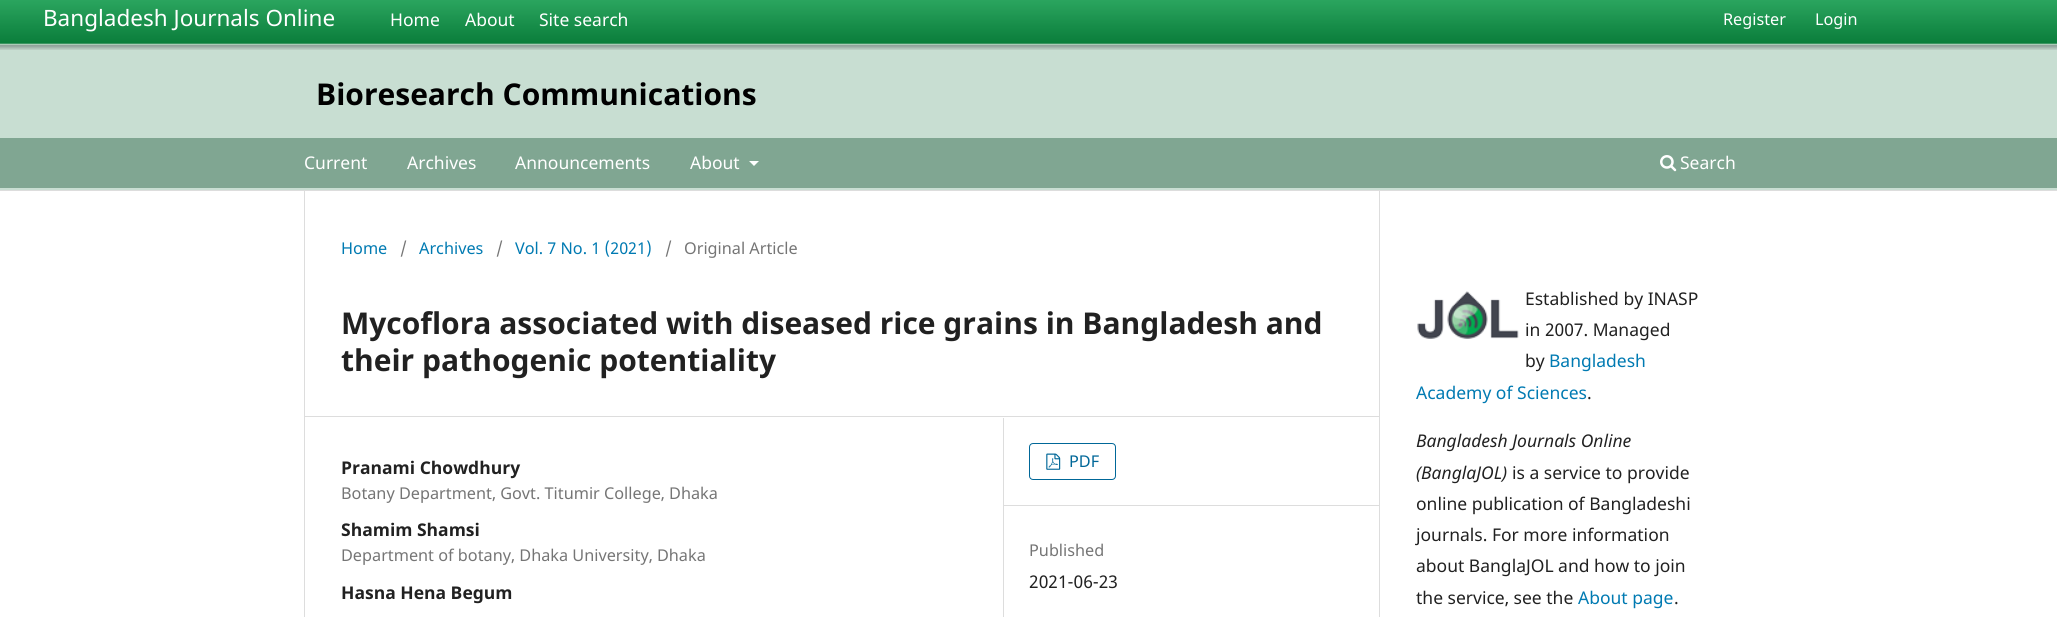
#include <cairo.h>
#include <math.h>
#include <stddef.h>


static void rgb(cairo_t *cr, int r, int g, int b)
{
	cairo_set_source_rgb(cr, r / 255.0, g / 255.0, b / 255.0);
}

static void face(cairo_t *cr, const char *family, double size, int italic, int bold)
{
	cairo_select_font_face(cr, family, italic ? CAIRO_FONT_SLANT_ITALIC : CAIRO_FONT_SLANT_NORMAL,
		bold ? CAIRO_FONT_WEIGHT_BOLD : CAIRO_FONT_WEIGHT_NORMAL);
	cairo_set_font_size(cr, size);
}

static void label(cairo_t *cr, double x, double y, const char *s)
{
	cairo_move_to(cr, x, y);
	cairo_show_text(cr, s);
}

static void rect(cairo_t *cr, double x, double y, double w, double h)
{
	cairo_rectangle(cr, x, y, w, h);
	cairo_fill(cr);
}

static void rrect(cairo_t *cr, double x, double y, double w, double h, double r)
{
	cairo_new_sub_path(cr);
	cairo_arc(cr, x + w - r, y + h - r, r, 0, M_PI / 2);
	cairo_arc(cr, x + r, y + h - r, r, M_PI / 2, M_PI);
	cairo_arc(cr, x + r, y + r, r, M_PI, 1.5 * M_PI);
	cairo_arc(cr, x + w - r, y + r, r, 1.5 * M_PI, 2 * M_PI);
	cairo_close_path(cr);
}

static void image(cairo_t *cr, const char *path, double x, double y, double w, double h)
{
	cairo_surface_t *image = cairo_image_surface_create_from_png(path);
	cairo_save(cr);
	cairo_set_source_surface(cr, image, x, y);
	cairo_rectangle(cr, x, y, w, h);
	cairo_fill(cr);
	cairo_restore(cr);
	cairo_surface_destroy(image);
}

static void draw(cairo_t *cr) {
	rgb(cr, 255, 255, 255);
	cairo_paint(cr);
	rgb(cr, 200, 222, 210);
	rect(cr, 0, 50, 2057, 140);
	rgb(cr, 221, 221, 221);
	rect(cr, 0, 190, 2057, 1);
	image(cr, "image0.png", 0, 0, 2057, 50);
	face(cr, "Noto Sans", 22.5, 0, 0);
	rgb(cr, 255, 255, 255);
	label(cr, 43, 26, "Bangladesh Journals Online");
	face(cr, "Noto Sans", 17.5, 0, 0);
	label(cr, 390, 26, "Home");
	label(cr, 465, 26, "About");
	label(cr, 539, 26, "Site search");
	face(cr, "Noto Sans", 16.25, 0, 0);
	label(cr, 1723, 25, "Register");
	label(cr, 1815, 25, "Login");
	rgb(cr, 128, 166, 146);
	rect(cr, 0, 138, 2057, 50);
	face(cr, "Noto Sans", 17.5, 0, 0);
	rgb(cr, 255, 255, 255);
	label(cr, 304, 169, "Current");
	label(cr, 407, 169, "Archives");
	label(cr, 515, 169, "Announcements");
	label(cr, 690, 169, "About");
	cairo_new_path(cr);
	cairo_move_to(cr, 749, 161);
	cairo_line_to(cr, 759, 161);
	cairo_line_to(cr, 754, 166);
	cairo_close_path(cr);
	cairo_fill(cr);
	image(cr, "image1.png", 1660, 155, 17, 17);
	label(cr, 1680, 169, "Search");
	face(cr, "Noto Sans", 30, 0, 1);
	rgb(cr, 0, 0, 0);
	label(cr, 316, 105, "Bioresearch Communications");
	rgb(cr, 221, 221, 221);
	rect(cr, 304, 416, 1075, 1);
	rect(cr, 304, 191, 1, 426);
	face(cr, "Noto Sans", 16.25, 0, 0);
	rgb(cr, 0, 122, 178);
	label(cr, 341, 254, "Home");
	rgb(cr, 117, 117, 117);
	label(cr, 400, 254, "/");
	rgb(cr, 0, 122, 178);
	label(cr, 419, 254, "Archives");
	rgb(cr, 117, 117, 117);
	label(cr, 496, 254, "/");
	rgb(cr, 0, 122, 178);
	label(cr, 515, 254, "Vol. 7 No. 1 (2021)");
	rgb(cr, 117, 117, 117);
	label(cr, 665, 254, "/");
	label(cr, 684, 254, "Original Article");
	face(cr, "Noto Sans", 30, 0, 1);
	rgb(cr, 33, 33, 33);
	label(cr, 341, 334, "Mycoflora associated with diseased rice grains in Bangladesh and");
	label(cr, 341, 371, "their pathogenic potentiality");
	rgb(cr, 221, 221, 221);
	rect(cr, 1003, 418, 1, 199);
	face(cr, "Noto Sans", 17.5, 0, 1);
	rgb(cr, 33, 33, 33);
	label(cr, 341, 474, "Pranami Chowdhury");
	face(cr, "Noto Sans", 16.25, 0, 0);
	rgb(cr, 117, 117, 117);
	label(cr, 341, 499, "Botany Department, Govt. Titumir College, Dhaka");
	face(cr, "Noto Sans", 17.5, 0, 1);
	rgb(cr, 33, 33, 33);
	label(cr, 341, 536, "Shamim Shamsi");
	face(cr, "Noto Sans", 16.25, 0, 0);
	rgb(cr, 117, 117, 117);
	label(cr, 341, 561, "Department of botany, Dhaka University, Dhaka");
	face(cr, "Noto Sans", 17.5, 0, 1);
	rgb(cr, 33, 33, 33);
	label(cr, 341, 599, "Hasna Hena Begum");
	rgb(cr, 221, 221, 221);
	rect(cr, 1004, 505, 375, 1);
	rrect(cr, 1029.5, 443.5, 86, 36, 3.5);
	rgb(cr, 0, 103, 152);
	cairo_set_line_width(cr, 1);
	cairo_stroke(cr);
	image(cr, "image2.png", 1046, 453, 15, 17);
	face(cr, "Noto Sans", 16.25, 0, 0);
	label(cr, 1069, 467, "PDF");
	rgb(cr, 117, 117, 117);
	label(cr, 1029, 556, "Published");
	face(cr, "Noto Sans", 17.5, 0, 0);
	rgb(cr, 33, 33, 33);
	label(cr, 1029, 588, "2021-06-23");
	rgb(cr, 221, 221, 221);
	rect(cr, 1379, 191, 1, 426);
	rgb(cr, 33, 33, 33);
	label(cr, 1525, 305, "Established by INASP");
	label(cr, 1525, 336, "in 2007. Managed");
	label(cr, 1525, 367, "by");
	rgb(cr, 0, 122, 178);
	label(cr, 1549, 367, "Bangladesh");
	label(cr, 1416, 399, "Academy of Sciences");
	rgb(cr, 33, 33, 33);
	label(cr, 1587, 399, ".");
	image(cr, "image3.png", 1417, 291, 102, 48);
	face(cr, "Noto Sans", 17.5, 1, 0);
	label(cr, 1416, 447, "Bangladesh Journals Online");
	label(cr, 1416, 479, "(BanglaJOL)");
	face(cr, "Noto Sans", 17.5, 0, 0);
	label(cr, 1512, 479, "is a service to provide");
	label(cr, 1416, 510, "online publication of Bangladeshi");
	label(cr, 1416, 541, "journals. For more information");
	label(cr, 1416, 572, "about BanglaJOL and how to join");
	label(cr, 1416, 604, "the service, see the");
	rgb(cr, 0, 122, 178);
	label(cr, 1578, 604, "About page");
	rgb(cr, 33, 33, 33);
	label(cr, 1674, 604, ".");
}

int main(void) {
	cairo_surface_t *surface = cairo_image_surface_create(CAIRO_FORMAT_RGB24, 2057, 617);
	cairo_t *cr = cairo_create(surface);
	cairo_font_options_t *options = cairo_font_options_create();
	cairo_font_options_set_hint_metrics(options, CAIRO_HINT_METRICS_OFF);
	cairo_font_options_set_hint_style(options, CAIRO_HINT_STYLE_NONE);
	cairo_set_font_options(cr, options);
	cairo_set_miter_limit(cr, 4);
	draw(cr);
	cairo_surface_write_to_png(surface, "render.png");
	cairo_font_options_destroy(options);
	cairo_destroy(cr);
	cairo_surface_destroy(surface);
	return 0;
}
